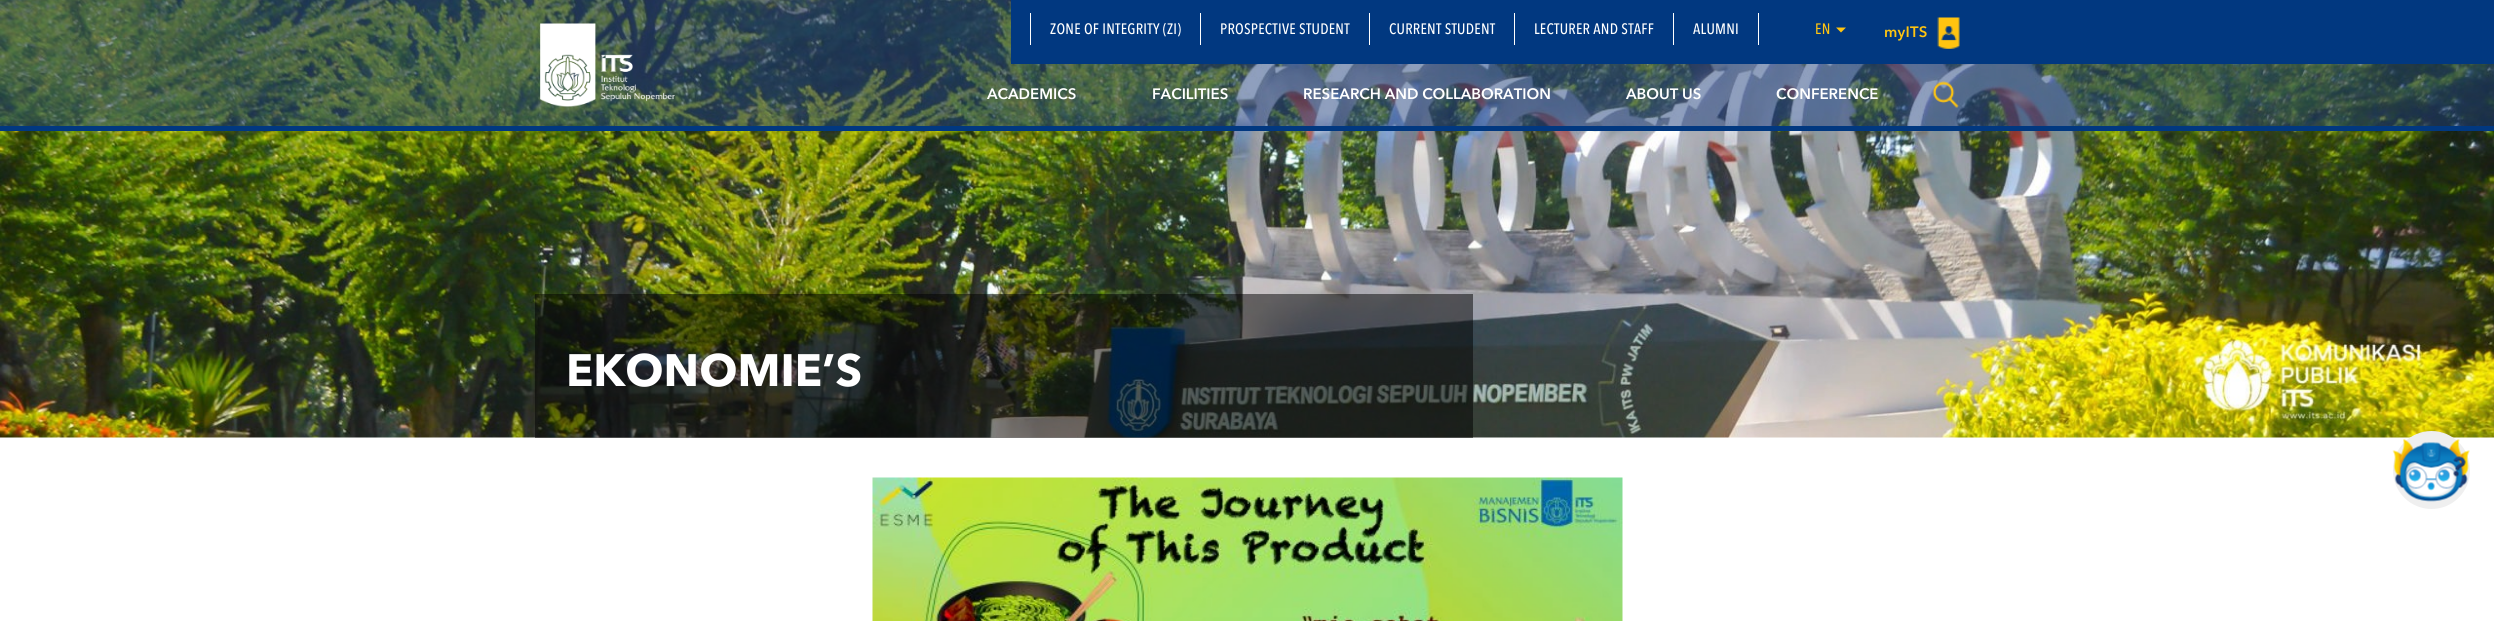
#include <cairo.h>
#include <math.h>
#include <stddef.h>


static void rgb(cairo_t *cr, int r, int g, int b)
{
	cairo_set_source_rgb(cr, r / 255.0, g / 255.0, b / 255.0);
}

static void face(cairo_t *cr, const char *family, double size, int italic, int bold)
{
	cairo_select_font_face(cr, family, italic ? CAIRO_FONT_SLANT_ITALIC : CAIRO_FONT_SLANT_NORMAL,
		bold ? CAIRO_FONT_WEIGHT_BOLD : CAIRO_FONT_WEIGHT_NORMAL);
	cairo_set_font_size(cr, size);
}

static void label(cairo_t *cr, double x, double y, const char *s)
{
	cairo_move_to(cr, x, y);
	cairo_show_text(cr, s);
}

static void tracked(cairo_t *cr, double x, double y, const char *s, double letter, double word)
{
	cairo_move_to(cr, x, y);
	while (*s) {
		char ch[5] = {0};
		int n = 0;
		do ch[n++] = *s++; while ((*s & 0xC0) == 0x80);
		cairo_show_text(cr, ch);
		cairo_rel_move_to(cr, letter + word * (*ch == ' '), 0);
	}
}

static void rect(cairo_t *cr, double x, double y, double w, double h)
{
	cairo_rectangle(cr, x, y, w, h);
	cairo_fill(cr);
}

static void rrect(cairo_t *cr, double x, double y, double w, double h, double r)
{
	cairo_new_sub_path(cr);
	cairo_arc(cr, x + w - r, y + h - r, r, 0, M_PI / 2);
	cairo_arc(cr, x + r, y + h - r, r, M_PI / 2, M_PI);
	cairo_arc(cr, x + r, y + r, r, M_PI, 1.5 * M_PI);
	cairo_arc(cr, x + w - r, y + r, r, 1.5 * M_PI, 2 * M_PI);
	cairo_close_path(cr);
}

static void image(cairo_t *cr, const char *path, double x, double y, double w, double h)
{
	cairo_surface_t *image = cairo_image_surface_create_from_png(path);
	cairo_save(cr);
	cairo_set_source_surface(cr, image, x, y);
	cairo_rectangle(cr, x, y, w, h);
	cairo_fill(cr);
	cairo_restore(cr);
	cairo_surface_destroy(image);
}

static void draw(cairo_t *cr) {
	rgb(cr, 255, 255, 255);
	cairo_paint(cr);
	image(cr, "image3.png", 0, 0, 2494, 438);
	cairo_set_source_rgba(cr, 0.125, 0.255, 0.498, 0.5);
	rect(cr, 0, 0, 2494, 126);
	rgb(cr, 1, 56, 128);
	rect(cr, 0, 126, 2494, 5);
	image(cr, "image0.png", 540, 23, 135, 84);
	rect(cr, 1011, 0, 1483, 64);
	rgb(cr, 255, 255, 255);
	rect(cr, 1200, 13, 1, 32);
	rect(cr, 1030, 13, 1, 32);
	face(cr, "Avenir Next Medium", 15, 0, 0);
	tracked(cr, 1050, 34, "ZONE OF INTEGRITY (ZI)", 0.25, 0);
	rect(cr, 1369, 13, 1, 32);
	tracked(cr, 1220, 34, "PROSPECTIVE STUDENT", 0.25, 0);
	rect(cr, 1514, 13, 1, 32);
	tracked(cr, 1389, 34, "CURRENT STUDENT", 0.25, 0);
	rect(cr, 1673, 13, 1, 32);
	tracked(cr, 1534, 34, "LECTURER AND STAFF", 0.25, 0);
	rect(cr, 1758, 13, 1, 32);
	tracked(cr, 1693, 34, "ALUMNI", 0.25, 0);
	rgb(cr, 255, 196, 16);
	tracked(cr, 1815, 34, "EN", 0.25, 0);
	cairo_new_path(cr);
	cairo_move_to(cr, 1836, 27.5);
	cairo_line_to(cr, 1846, 27.5);
	cairo_line_to(cr, 1841, 32.5);
	cairo_close_path(cr);
	cairo_fill(cr);
	face(cr, "Avenir Next SemiBold", 15, 0, 0);
	tracked(cr, 1884, 37, "myITS", 0.25, 0);
	image(cr, "image1.png", 1937, 17, 23, 32);
	rgb(cr, 255, 255, 255);
	label(cr, 987, 99, "ACADEMICS");
	label(cr, 1152, 99, "FACILITIES");
	label(cr, 1303, 99, "RESEARCH AND COLLABORATION");
	label(cr, 1626, 99, "ABOUT US");
	label(cr, 1776, 99, "CONFERENCE");
	image(cr, "image2.png", 1932, 81, 27, 27);
	cairo_set_source_rgba(cr, 0, 0, 0, 0.5);
	rect(cr, 535, 294, 938, 144);
	face(cr, "Avenir Next", 45, 0, 1);
	rgb(cr, 255, 255, 255);
	label(cr, 566, 386, "EKONOMIE’S");
	image(cr, "image4.png", 872, 477, 751, 144);
	rgb(cr, 239, 239, 239);
	rrect(cr, 2393, 431, 77, 78, 38.5);
	cairo_fill(cr);
	image(cr, "image5.png", 2392, 439, 78, 63);
}

int main(void) {
	cairo_surface_t *surface = cairo_image_surface_create(CAIRO_FORMAT_RGB24, 2494, 621);
	cairo_t *cr = cairo_create(surface);
	cairo_font_options_t *options = cairo_font_options_create();
	cairo_font_options_set_hint_metrics(options, CAIRO_HINT_METRICS_OFF);
	cairo_font_options_set_hint_style(options, CAIRO_HINT_STYLE_NONE);
	cairo_set_font_options(cr, options);
	cairo_set_miter_limit(cr, 4);
	draw(cr);
	cairo_surface_write_to_png(surface, "render.png");
	cairo_font_options_destroy(options);
	cairo_destroy(cr);
	cairo_surface_destroy(surface);
	return 0;
}
